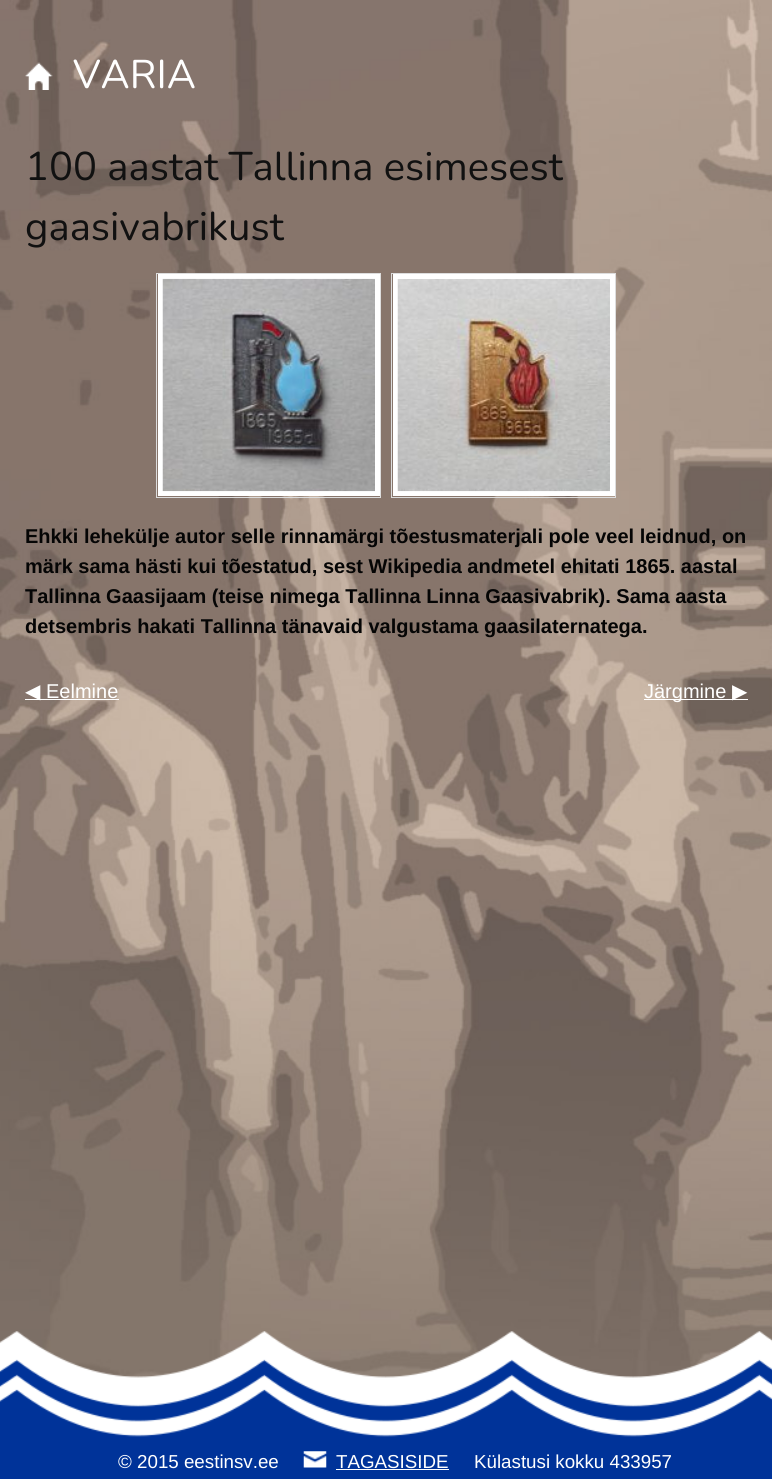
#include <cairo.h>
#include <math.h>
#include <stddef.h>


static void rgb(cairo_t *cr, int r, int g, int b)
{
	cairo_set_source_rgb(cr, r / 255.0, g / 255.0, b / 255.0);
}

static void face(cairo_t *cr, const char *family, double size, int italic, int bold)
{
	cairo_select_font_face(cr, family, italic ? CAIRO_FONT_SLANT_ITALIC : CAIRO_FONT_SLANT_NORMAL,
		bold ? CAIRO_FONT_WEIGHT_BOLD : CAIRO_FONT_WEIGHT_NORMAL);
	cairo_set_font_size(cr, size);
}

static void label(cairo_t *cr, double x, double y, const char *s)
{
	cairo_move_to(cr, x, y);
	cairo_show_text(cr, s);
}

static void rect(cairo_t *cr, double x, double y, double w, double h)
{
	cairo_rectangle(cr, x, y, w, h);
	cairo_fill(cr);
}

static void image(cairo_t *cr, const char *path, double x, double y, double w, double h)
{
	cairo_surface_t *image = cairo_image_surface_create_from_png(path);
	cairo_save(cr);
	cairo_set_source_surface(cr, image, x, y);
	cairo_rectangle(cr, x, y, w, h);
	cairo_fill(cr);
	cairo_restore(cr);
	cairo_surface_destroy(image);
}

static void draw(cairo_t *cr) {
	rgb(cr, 255, 255, 255);
	cairo_paint(cr);
	image(cr, "image0.png", 0, 0, 772, 1378);
	image(cr, "image1.png", 25, 62, 28, 28);
	face(cr, "Nunito ExtraLight", 40, 0, 0);
	rgb(cr, 255, 255, 255);
	label(cr, 73, 88, "VARIA");
	rgb(cr, 17, 17, 17);
	label(cr, 25, 180, "100 aastat Tallinna esimesest");
	label(cr, 25, 240, "gaasivabrikust");
	cairo_rectangle(cr, 156.5, 273.5, 224, 224);
	rgb(cr, 221, 221, 221);
	cairo_set_line_width(cr, 1);
	cairo_stroke(cr);
	rgb(cr, 255, 255, 255);
	rect(cr, 158, 274, 222, 222);
	image(cr, "image2.png", 162, 278, 213, 214);
	cairo_rectangle(cr, 391.5, 273.5, 224, 224);
	rgb(cr, 221, 221, 221);
	cairo_stroke(cr);
	rgb(cr, 255, 255, 255);
	rect(cr, 393, 274, 222, 222);
	image(cr, "image3.png", 397, 279, 213, 213);
	face(cr, "Liberation Sans", 20, 0, 1);
	rgb(cr, 5, 5, 5);
	label(cr, 25, 543, "Ehkki lehekülje autor selle rinnamärgi tõestusmaterjali pole veel leidnud, on");
	label(cr, 25, 573, "märk sama hästi kui tõestatud, sest Wikipedia andmetel ehitati 1865. aastal");
	label(cr, 25, 603, "Tallinna Gaasijaam (teise nimega Tallinna Linna Gaasivabrik). Sama aasta");
	label(cr, 25, 633, "detsembris hakati Tallinna tänavaid valgustama gaasilaternatega.");
	rgb(cr, 255, 255, 255);
	rect(cr, 25, 699, 94, 1);
	face(cr, "DejaVu Sans", 20, 0, 0);
	label(cr, 25, 698, "◀");
	face(cr, "Liberation Sans", 20, 0, 0);
	label(cr, 46, 698, "Eelmine");
	rect(cr, 644, 699, 104, 1);
	label(cr, 644, 698, "Järgmine");
	face(cr, "DejaVu Sans", 20, 0, 0);
	label(cr, 732, 698, "▶");
	image(cr, "image4.png", 0, 1331, 772, 148);
	face(cr, "Liberation Sans", 18.75, 0, 0);
	label(cr, 118, 1468, "© 2015 eestinsv.ee");
	image(cr, "image5.png", 303, 1451, 24, 17);
	label(cr, 336, 1468, "TAGASISIDE");
	rect(cr, 336, 1469, 113, 1);
	label(cr, 474, 1468, "Külastusi kokku 433957");
}

int main(void) {
	cairo_surface_t *surface = cairo_image_surface_create(CAIRO_FORMAT_RGB24, 772, 1479);
	cairo_t *cr = cairo_create(surface);
	cairo_font_options_t *options = cairo_font_options_create();
	cairo_font_options_set_hint_metrics(options, CAIRO_HINT_METRICS_OFF);
	cairo_font_options_set_hint_style(options, CAIRO_HINT_STYLE_NONE);
	cairo_set_font_options(cr, options);
	cairo_set_miter_limit(cr, 4);
	draw(cr);
	cairo_surface_write_to_png(surface, "render.png");
	cairo_font_options_destroy(options);
	cairo_destroy(cr);
	cairo_surface_destroy(surface);
	return 0;
}
